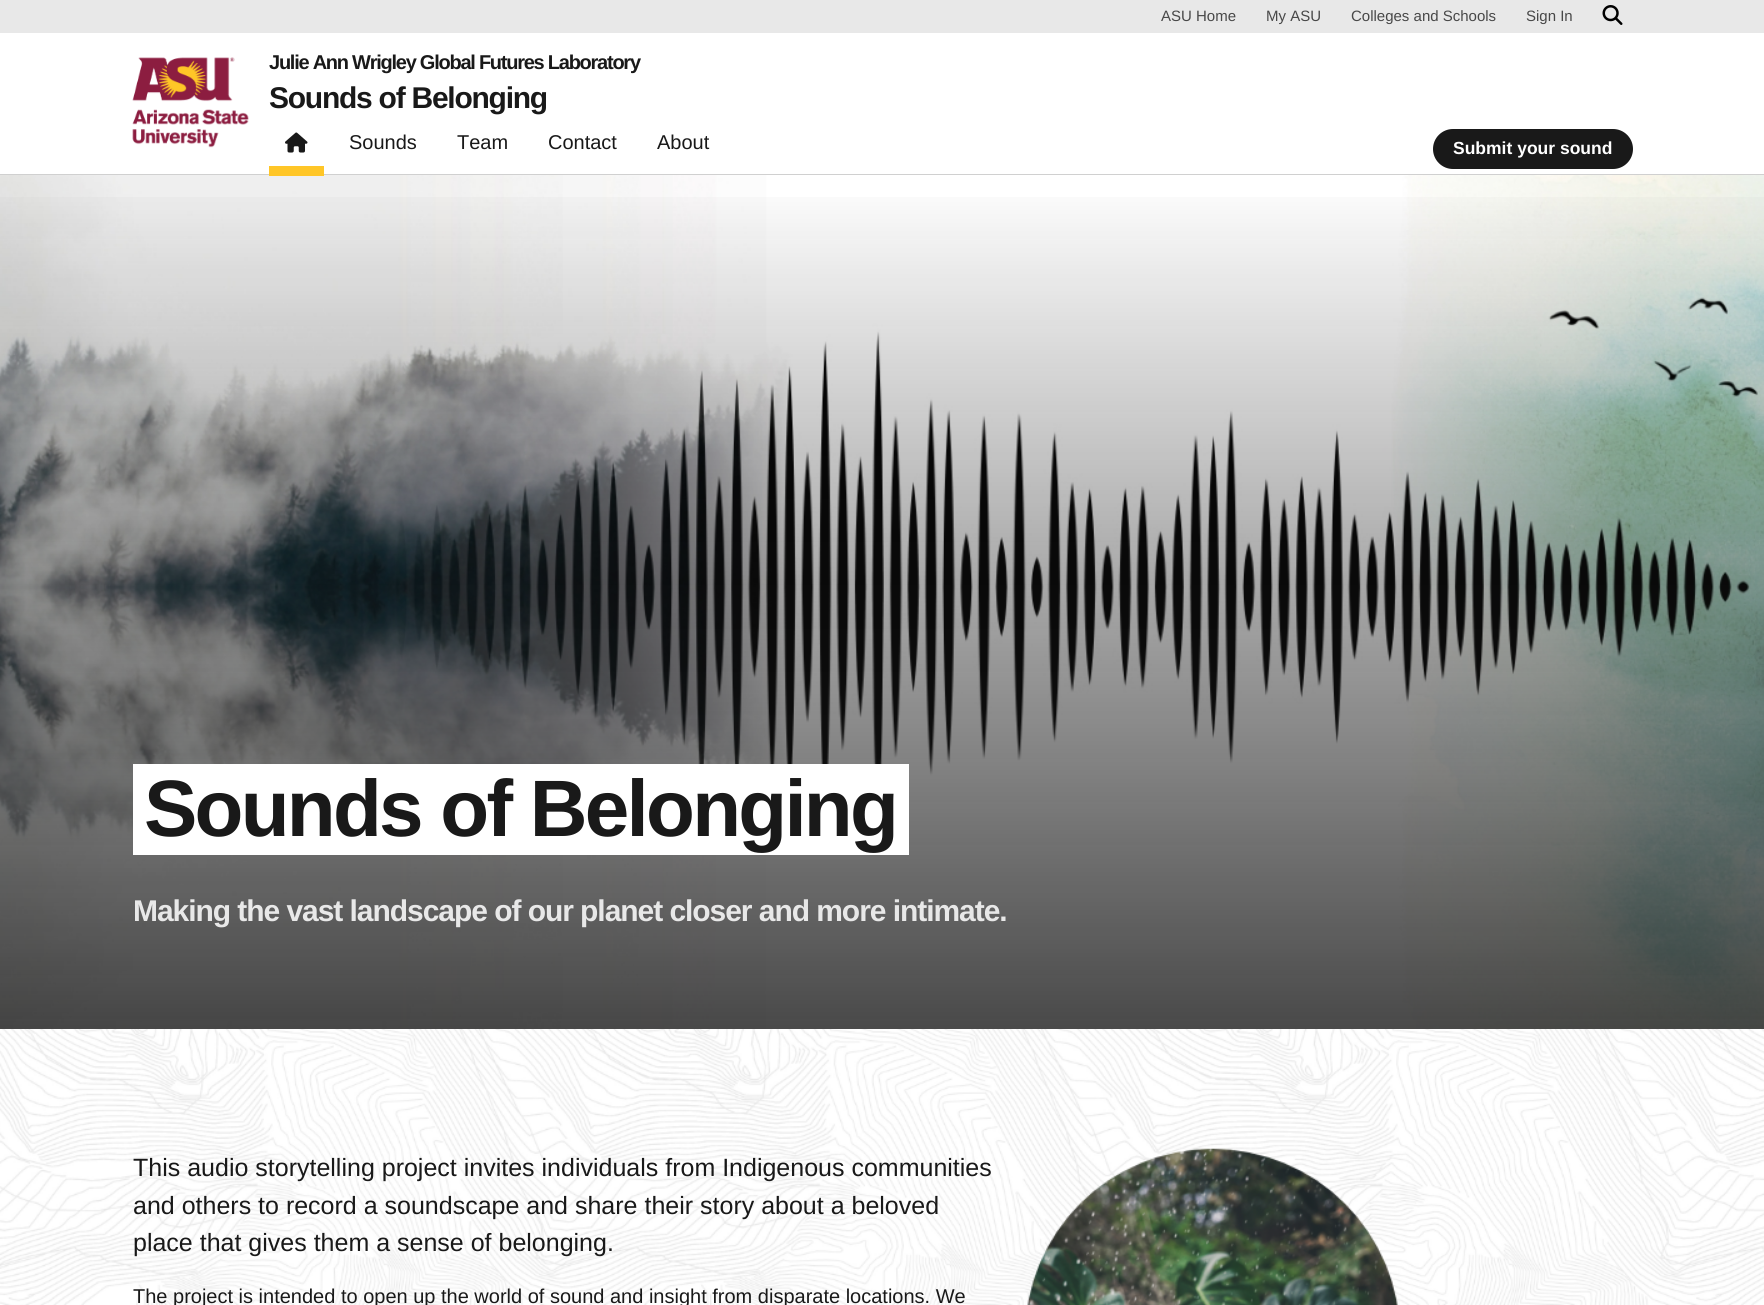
#include <cairo.h>
#include <math.h>
#include <stddef.h>


static void rgb(cairo_t *cr, int r, int g, int b)
{
	cairo_set_source_rgb(cr, r / 255.0, g / 255.0, b / 255.0);
}

static void face(cairo_t *cr, const char *family, double size, int italic, int bold)
{
	cairo_select_font_face(cr, family, italic ? CAIRO_FONT_SLANT_ITALIC : CAIRO_FONT_SLANT_NORMAL,
		bold ? CAIRO_FONT_WEIGHT_BOLD : CAIRO_FONT_WEIGHT_NORMAL);
	cairo_set_font_size(cr, size);
}

static void label(cairo_t *cr, double x, double y, const char *s)
{
	cairo_move_to(cr, x, y);
	cairo_show_text(cr, s);
}

static void tracked(cairo_t *cr, double x, double y, const char *s, double letter, double word)
{
	cairo_move_to(cr, x, y);
	while (*s) {
		char ch[5] = {0};
		int n = 0;
		do ch[n++] = *s++; while ((*s & 0xC0) == 0x80);
		cairo_show_text(cr, ch);
		cairo_rel_move_to(cr, letter + word * (*ch == ' '), 0);
	}
}

static void rect(cairo_t *cr, double x, double y, double w, double h)
{
	cairo_rectangle(cr, x, y, w, h);
	cairo_fill(cr);
}

static void rrect(cairo_t *cr, double x, double y, double w, double h, double r)
{
	cairo_new_sub_path(cr);
	cairo_arc(cr, x + w - r, y + h - r, r, 0, M_PI / 2);
	cairo_arc(cr, x + r, y + h - r, r, M_PI / 2, M_PI);
	cairo_arc(cr, x + r, y + r, r, M_PI, 1.5 * M_PI);
	cairo_arc(cr, x + w - r, y + r, r, 1.5 * M_PI, 2 * M_PI);
	cairo_close_path(cr);
}

static void image(cairo_t *cr, const char *path, double x, double y, double w, double h)
{
	cairo_surface_t *image = cairo_image_surface_create_from_png(path);
	cairo_save(cr);
	cairo_set_source_surface(cr, image, x, y);
	cairo_rectangle(cr, x, y, w, h);
	cairo_fill(cr);
	cairo_restore(cr);
	cairo_surface_destroy(image);
}

static void draw(cairo_t *cr) {
	cairo_pattern_t *gradient;
	rgb(cr, 255, 255, 255);
	cairo_paint(cr);
	rgb(cr, 232, 232, 232);
	rect(cr, 0, 0, 1764, 33);
	face(cr, "Liberation Sans", 15, 0, 0);
	rgb(cr, 72, 72, 72);
	label(cr, 1161, 21, "ASU Home");
	label(cr, 1266, 21, "My ASU");
	label(cr, 1351, 21, "Colleges and Schools");
	label(cr, 1526, 21, "Sign In");
	image(cr, "image0.png", 1602, 5, 21, 20);
	rgb(cr, 208, 208, 208);
	rect(cr, 0, 174, 1764, 1);
	image(cr, "image1.png", 132, 57, 117, 91);
	face(cr, "Liberation Sans", 20, 0, 1);
	rgb(cr, 25, 25, 25);
	tracked(cr, 269, 69, "Julie Ann Wrigley Global Futures Laboratory", -1.25, 0);
	face(cr, "Liberation Sans", 30, 0, 1);
	tracked(cr, 269, 108, "Sounds of Belonging", -1.25, 0);
	image(cr, "image2.png", 285, 132, 23, 21);
	image(cr, "image4.png", 0, 1028, 1764, 277);
	image(cr, "image3.png", 0, 175, 1764, 854);
	rgb(cr, 255, 198, 39);
	rect(cr, 269, 166, 55, 10);
	face(cr, "Liberation Sans", 20, 0, 0);
	rgb(cr, 25, 25, 25);
	label(cr, 349, 149, "Sounds");
	label(cr, 457, 149, "Team");
	label(cr, 548, 149, "Contact");
	label(cr, 657, 149, "About");
	rrect(cr, 1433, 129, 200, 40, 20);
	cairo_fill(cr);
	face(cr, "Liberation Sans", 17.5, 0, 1);
	rgb(cr, 255, 255, 255);
	label(cr, 1453, 154, "Submit your sound");
	gradient = cairo_pattern_create_linear(883, 174, 883, 1029);
	cairo_pattern_add_color_stop_rgba(gradient, 0, 0.098, 0.098, 0.098, 0);
	cairo_pattern_add_color_stop_rgba(gradient, 1, 0.098, 0.098, 0.098, 0.79);
	cairo_set_source(cr, gradient);
	cairo_pattern_destroy(gradient);
	rect(cr, 0, 197, 1764, 832);
	rgb(cr, 255, 255, 255);
	rect(cr, 133, 764, 763, 91);
	face(cr, "Liberation Sans", 80, 0, 1);
	rgb(cr, 25, 25, 25);
	tracked(cr, 144, 836, "Sounds of Belonging", -2.75, 0);
	rgb(cr, 255, 255, 255);
	rect(cr, 896, 764, 13, 91);
	face(cr, "Liberation Sans", 30, 0, 1);
	rgb(cr, 232, 232, 232);
	tracked(cr, 133, 921, "Making the vast landscape of our planet closer and more intimate.", -1.05, 0);
	face(cr, "Liberation Sans", 25, 0, 0);
	rgb(cr, 25, 25, 25);
	label(cr, 133, 1176, "This audio storytelling project invites individuals from Indigenous communities");
	label(cr, 133, 1214, "and others to record a soundscape and share their story about a beloved");
	label(cr, 133, 1251, "place that gives them a sense of belonging.");
	face(cr, "Liberation Sans", 20, 0, 0);
	label(cr, 133, 1303, "The project is intended to open up the world of sound and insight from disparate locations. We");
	image(cr, "image5.png", 1027, 1148, 371, 157);
}

int main(void) {
	cairo_surface_t *surface = cairo_image_surface_create(CAIRO_FORMAT_RGB24, 1764, 1305);
	cairo_t *cr = cairo_create(surface);
	cairo_font_options_t *options = cairo_font_options_create();
	cairo_font_options_set_hint_metrics(options, CAIRO_HINT_METRICS_OFF);
	cairo_font_options_set_hint_style(options, CAIRO_HINT_STYLE_NONE);
	cairo_set_font_options(cr, options);
	cairo_set_miter_limit(cr, 4);
	draw(cr);
	cairo_surface_write_to_png(surface, "render.png");
	cairo_font_options_destroy(options);
	cairo_destroy(cr);
	cairo_surface_destroy(surface);
	return 0;
}
